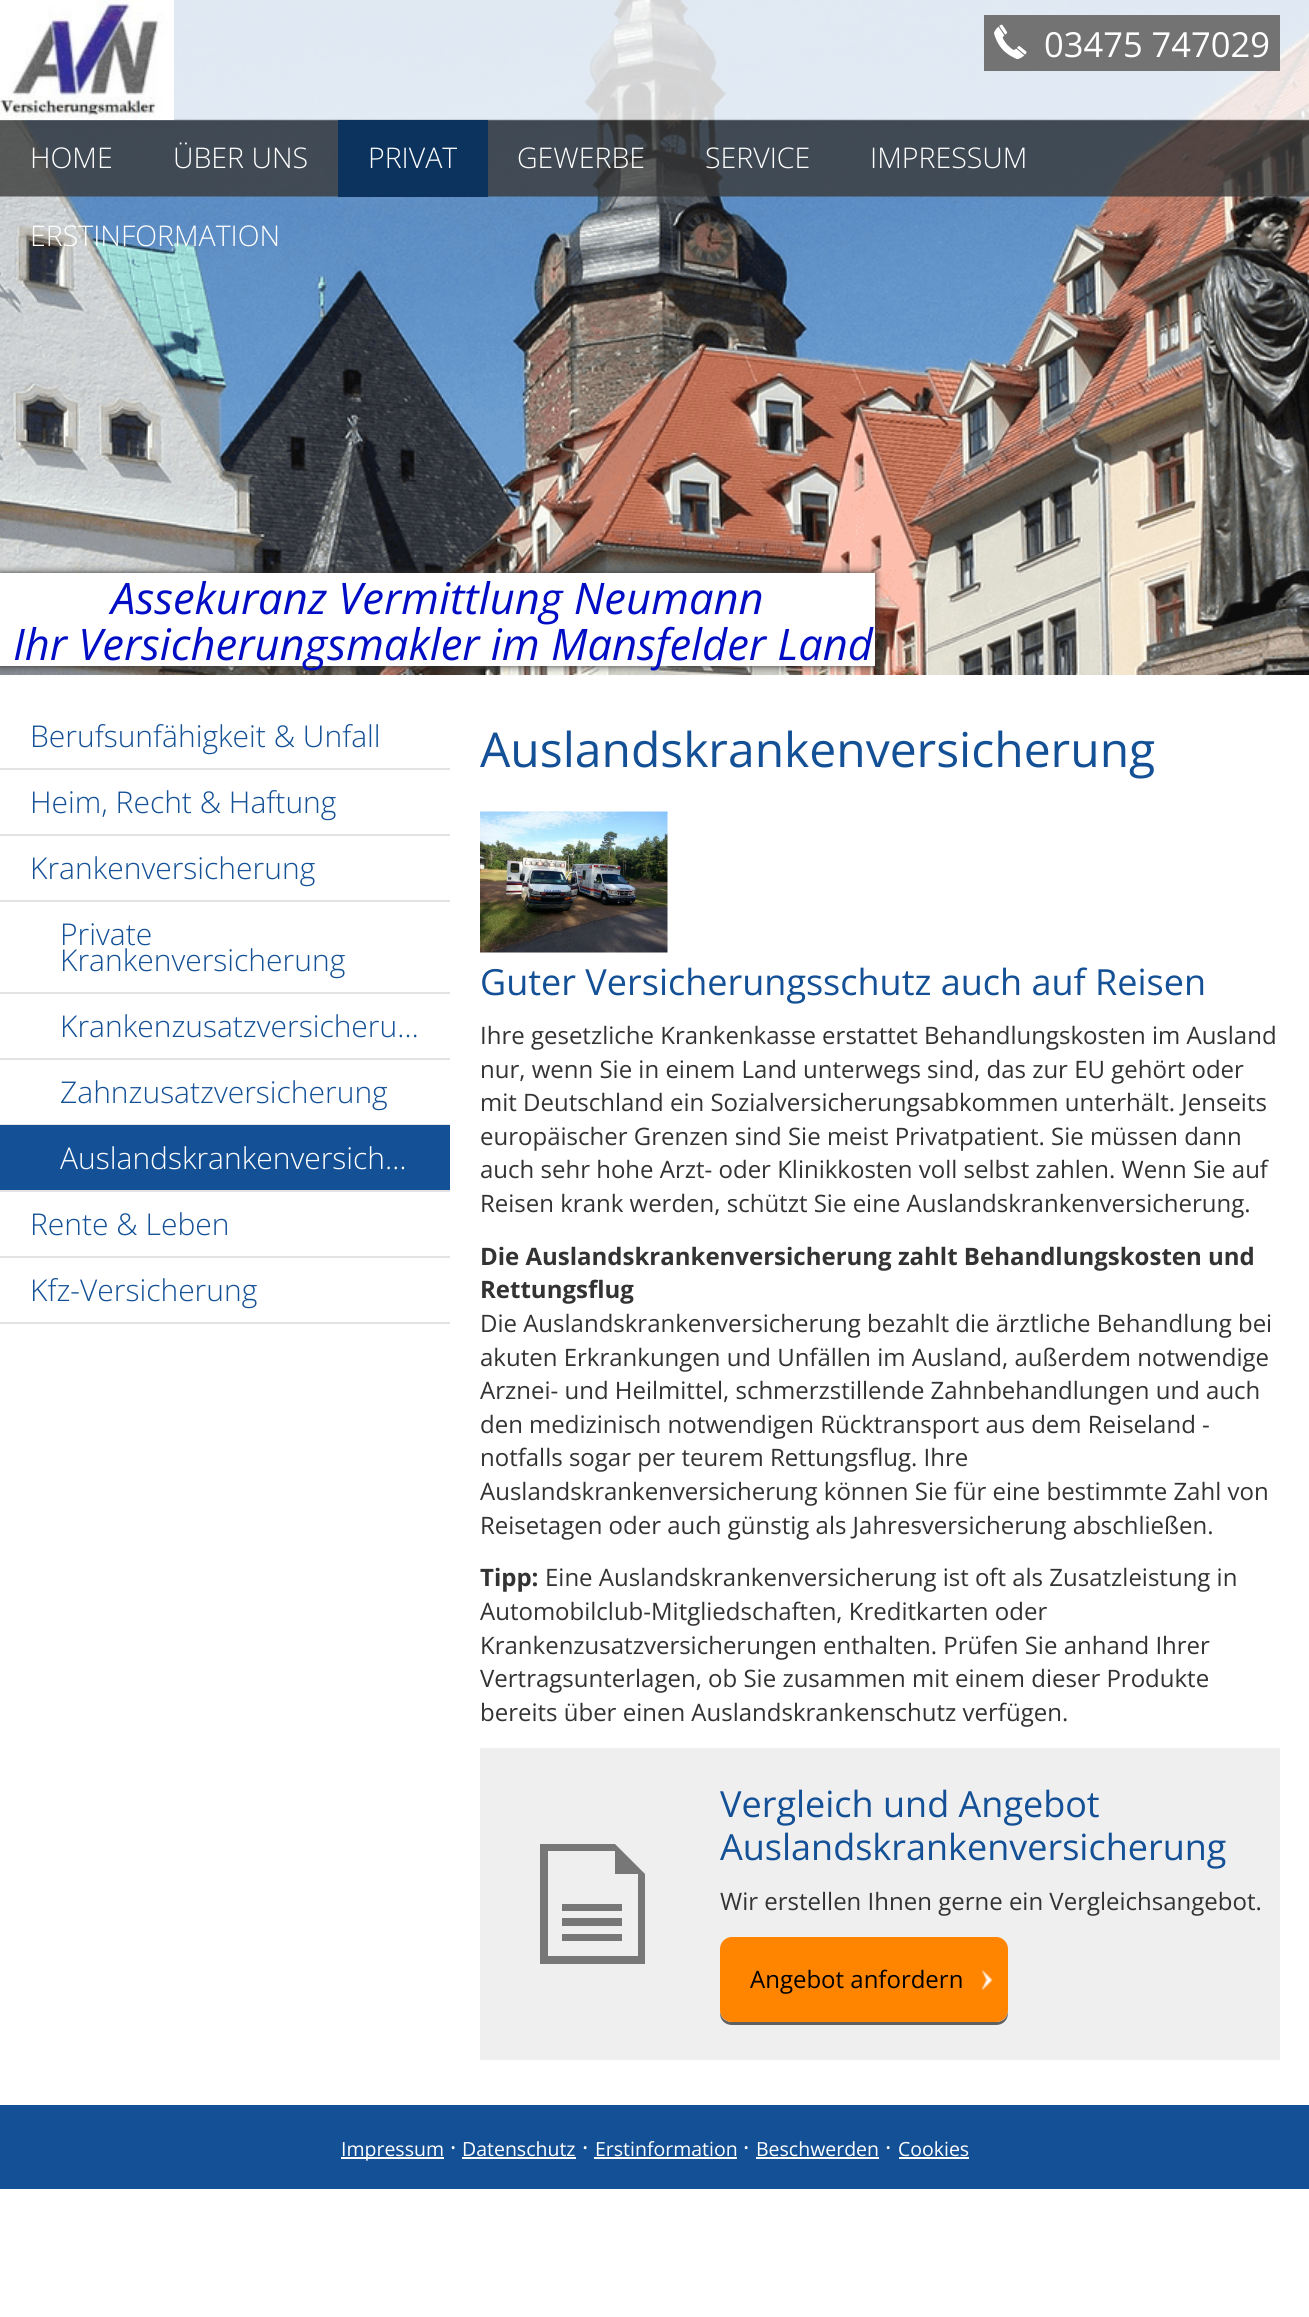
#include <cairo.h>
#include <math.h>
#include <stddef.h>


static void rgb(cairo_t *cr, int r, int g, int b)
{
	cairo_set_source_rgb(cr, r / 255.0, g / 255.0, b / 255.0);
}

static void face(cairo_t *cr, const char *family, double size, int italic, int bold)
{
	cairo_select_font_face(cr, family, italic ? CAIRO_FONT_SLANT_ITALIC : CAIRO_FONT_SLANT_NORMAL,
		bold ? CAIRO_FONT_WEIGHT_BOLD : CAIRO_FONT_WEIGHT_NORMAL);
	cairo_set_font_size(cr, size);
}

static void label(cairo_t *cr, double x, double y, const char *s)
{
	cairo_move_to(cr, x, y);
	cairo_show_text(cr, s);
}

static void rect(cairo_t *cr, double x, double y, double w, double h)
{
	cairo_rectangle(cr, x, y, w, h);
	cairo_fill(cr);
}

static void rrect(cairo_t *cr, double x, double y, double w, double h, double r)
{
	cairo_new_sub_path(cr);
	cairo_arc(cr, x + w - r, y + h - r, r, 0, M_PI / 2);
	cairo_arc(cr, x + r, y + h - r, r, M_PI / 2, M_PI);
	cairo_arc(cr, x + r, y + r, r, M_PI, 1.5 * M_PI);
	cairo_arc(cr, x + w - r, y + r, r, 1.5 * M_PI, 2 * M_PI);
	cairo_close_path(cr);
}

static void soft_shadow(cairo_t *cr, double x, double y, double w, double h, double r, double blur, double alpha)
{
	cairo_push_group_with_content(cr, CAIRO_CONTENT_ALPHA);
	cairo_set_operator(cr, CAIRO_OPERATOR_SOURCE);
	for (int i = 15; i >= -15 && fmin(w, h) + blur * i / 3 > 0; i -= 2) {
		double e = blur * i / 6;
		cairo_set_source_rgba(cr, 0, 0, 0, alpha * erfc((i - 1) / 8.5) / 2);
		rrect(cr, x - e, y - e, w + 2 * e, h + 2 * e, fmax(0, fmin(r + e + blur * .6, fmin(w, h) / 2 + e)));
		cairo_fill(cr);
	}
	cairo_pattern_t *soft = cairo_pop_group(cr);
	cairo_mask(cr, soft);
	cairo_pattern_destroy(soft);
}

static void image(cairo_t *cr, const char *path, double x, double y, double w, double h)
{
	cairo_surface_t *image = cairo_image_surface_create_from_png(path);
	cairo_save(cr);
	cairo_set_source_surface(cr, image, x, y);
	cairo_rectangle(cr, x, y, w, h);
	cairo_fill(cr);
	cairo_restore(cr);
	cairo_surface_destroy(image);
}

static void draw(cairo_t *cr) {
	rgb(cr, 255, 255, 255);
	cairo_paint(cr);
	image(cr, "image0.png", 0, 0, 1309, 675);
	image(cr, "image1.png", 0, 0, 1309, 197);
	image(cr, "image2.png", 0, 0, 174, 120);
	rgb(cr, 115, 115, 115);
	rect(cr, 984, 15, 296, 56);
	image(cr, "image3.png", 994, 24, 33, 36);
	face(cr, "Open Sans", 34.5, 0, 0);
	rgb(cr, 255, 255, 255);
	label(cr, 1044, 57, "03475 747029");
	rgb(cr, 51, 51, 51);
	soft_shadow(cr, 0, 573, 875, 93, 0, 4, 1);
	rgb(cr, 255, 255, 255);
	rect(cr, 0, 573, 875, 93);
	face(cr, "Open Sans", 43.5, 1, 0);
	rgb(cr, 0, 13, 196);
	label(cr, 111, 614, "Assekuranz Vermittlung Neumann");
	label(cr, 13, 660, "Ihr Versicherungsmakler im Mansfelder Land");
	face(cr, "Open Sans Light", 28.5, 0, 0);
	rgb(cr, 255, 255, 255);
	label(cr, 30, 168, "HOME");
	label(cr, 173, 168, "ÜBER UNS");
	rgb(cr, 12, 51, 94);
	rect(cr, 338, 120, 150, 77);
	rgb(cr, 255, 255, 255);
	label(cr, 368, 168, "PRIVAT");
	rgb(cr, 227, 227, 227);
	rect(cr, 0, 768, 450, 2);
	face(cr, "Open Sans Light", 30, 0, 0);
	rgb(cr, 19, 80, 150);
	label(cr, 30, 747, "Berufsunfähigkeit & Unfall");
	rgb(cr, 227, 227, 227);
	rect(cr, 0, 834, 450, 2);
	rgb(cr, 19, 80, 150);
	label(cr, 30, 813, "Heim, Recht & Haftung");
	rgb(cr, 227, 227, 227);
	rect(cr, 0, 900, 450, 2);
	rgb(cr, 19, 80, 150);
	label(cr, 30, 879, "Krankenversicherung");
	rgb(cr, 227, 227, 227);
	rect(cr, 0, 992, 450, 2);
	rgb(cr, 19, 80, 150);
	label(cr, 60, 945, "Private");
	label(cr, 60, 971, "Krankenversicherung");
	rgb(cr, 227, 227, 227);
	rect(cr, 0, 1058, 450, 2);
	rgb(cr, 19, 80, 150);
	label(cr, 60, 1037, "Krankenzusatzversicheru…");
	rgb(cr, 227, 227, 227);
	rect(cr, 0, 1124, 450, 1);
	rgb(cr, 19, 80, 150);
	label(cr, 60, 1103, "Zahnzusatzversicherung");
	rect(cr, 0, 1125, 450, 65);
	rgb(cr, 227, 227, 227);
	rect(cr, 0, 1190, 450, 2);
	rgb(cr, 255, 255, 255);
	label(cr, 60, 1169, "Auslandskrankenversich…");
	rgb(cr, 227, 227, 227);
	rect(cr, 0, 1256, 450, 2);
	rgb(cr, 19, 80, 150);
	label(cr, 30, 1235, "Rente & Leben");
	rgb(cr, 227, 227, 227);
	rect(cr, 0, 1322, 450, 2);
	rgb(cr, 19, 80, 150);
	label(cr, 30, 1301, "Kfz-Versicherung");
	face(cr, "Open Sans Light", 28.5, 0, 0);
	rgb(cr, 255, 255, 255);
	label(cr, 517, 168, "GEWERBE");
	label(cr, 705, 168, "SERVICE");
	label(cr, 870, 168, "IMPRESSUM");
	label(cr, 30, 246, "ERSTINFORMATION");
	face(cr, "Open Sans", 48, 0, 0);
	rgb(cr, 19, 80, 150);
	label(cr, 480, 767, "Auslandskrankenversicherung");
	image(cr, "image4.png", 480, 811, 188, 142);
	face(cr, "Open Sans", 36, 0, 0);
	label(cr, 480, 995, "Guter Versicherungsschutz auch auf Reisen");
	face(cr, "Open Sans", 24, 0, 0);
	rgb(cr, 51, 51, 51);
	label(cr, 480, 1044, "Ihre gesetzliche Krankenkasse erstattet Behandlungskosten im Ausland");
	label(cr, 480, 1078, "nur, wenn Sie in einem Land unterwegs sind, das zur EU gehört oder");
	label(cr, 480, 1111, "mit Deutschland ein Sozialversicherungsabkommen unterhält. Jenseits");
	label(cr, 480, 1145, "europäischer Grenzen sind Sie meist Privatpatient. Sie müssen dann");
	label(cr, 480, 1178, "auch sehr hohe Arzt- oder Klinikkosten voll selbst zahlen. Wenn Sie auf");
	label(cr, 480, 1212, "Reisen krank werden, schützt Sie eine Auslandskrankenversicherung.");
	face(cr, "Open Sans", 24, 0, 1);
	label(cr, 480, 1265, "Die Auslandskrankenversicherung zahlt Behandlungskosten und");
	label(cr, 480, 1298, "Rettungsflug");
	face(cr, "Open Sans", 24, 0, 0);
	label(cr, 480, 1332, "Die Auslandskrankenversicherung bezahlt die ärztliche Behandlung bei");
	label(cr, 480, 1366, "akuten Erkrankungen und Unfällen im Ausland, außerdem notwendige");
	label(cr, 480, 1399, "Arznei- und Heilmittel, schmerzstillende Zahnbehandlungen und auch");
	label(cr, 480, 1433, "den medizinisch notwendigen Rücktransport aus dem Reiseland -");
	label(cr, 480, 1466, "notfalls sogar per teurem Rettungsflug. Ihre");
	label(cr, 480, 1500, "Auslandskrankenversicherung können Sie für eine bestimmte Zahl von");
	label(cr, 480, 1534, "Reisetagen oder auch günstig als Jahresversicherung abschließen.");
	face(cr, "Open Sans", 24, 0, 1);
	label(cr, 480, 1586, "Tipp:");
	face(cr, "Open Sans", 24, 0, 0);
	label(cr, 545, 1586, "Eine Auslandskrankenversicherung ist oft als Zusatzleistung in");
	label(cr, 480, 1620, "Automobilclub-Mitgliedschaften, Kreditkarten oder");
	label(cr, 480, 1654, "Krankenzusatzversicherungen enthalten. Prüfen Sie anhand Ihrer");
	label(cr, 480, 1687, "Vertragsunterlagen, ob Sie zusammen mit einem dieser Produkte");
	label(cr, 480, 1721, "bereits über einen Auslandskrankenschutz verfügen.");
	rgb(cr, 239, 239, 239);
	rect(cr, 480, 1748, 800, 312);
	rgb(cr, 119, 119, 119);
	cairo_new_path(cr);
	cairo_move_to(cr, 615, 1844);
	cairo_line_to(cr, 540, 1844);
	cairo_line_to(cr, 540, 1964);
	cairo_line_to(cr, 645, 1964);
	cairo_line_to(cr, 645, 1874);
	cairo_close_path(cr);
	cairo_move_to(cr, 638, 1956);
	cairo_line_to(cr, 548, 1956);
	cairo_line_to(cr, 548, 1851);
	cairo_line_to(cr, 615, 1851);
	cairo_line_to(cr, 615, 1874);
	cairo_line_to(cr, 638, 1874);
	cairo_close_path(cr);
	cairo_move_to(cr, 562, 1934);
	cairo_line_to(cr, 622, 1934);
	cairo_line_to(cr, 622, 1941);
	cairo_line_to(cr, 562, 1941);
	cairo_close_path(cr);
	cairo_move_to(cr, 562, 1918);
	cairo_line_to(cr, 622, 1918);
	cairo_line_to(cr, 622, 1926);
	cairo_line_to(cr, 562, 1926);
	cairo_close_path(cr);
	cairo_move_to(cr, 562, 1904);
	cairo_line_to(cr, 622, 1904);
	cairo_line_to(cr, 622, 1911);
	cairo_line_to(cr, 562, 1911);
	cairo_close_path(cr);
	cairo_fill(cr);
	face(cr, "Open Sans", 36, 0, 0);
	rgb(cr, 19, 80, 150);
	label(cr, 720, 1817, "Vergleich und Angebot");
	label(cr, 720, 1860, "Auslandskrankenversicherung");
	face(cr, "Open Sans", 24, 0, 0);
	rgb(cr, 51, 51, 51);
	label(cr, 720, 1910, "Wir erstellen Ihnen gerne ein Vergleichsangebot.");
	rgb(cr, 96, 96, 96);
	cairo_new_path(cr);
	cairo_move_to(cr, 720, 2010);
	cairo_line_to(cr, 720, 2013);
	cairo_curve_to(cr, 720, 2020, 725, 2025, 732, 2025);
	cairo_line_to(cr, 996, 2025);
	cairo_curve_to(cr, 1003, 2025, 1008, 2020, 1008, 2013);
	cairo_line_to(cr, 1008, 2010);
	cairo_curve_to(cr, 1008, 2017, 1003, 2022, 996, 2022);
	cairo_line_to(cr, 732, 2022);
	cairo_curve_to(cr, 725, 2022, 720, 2017, 720, 2010);
	cairo_close_path(cr);
	cairo_fill(cr);
	rgb(cr, 255, 132, 0);
	rrect(cr, 720, 1937, 288, 85, 12);
	cairo_fill(cr);
	image(cr, "image5.png", 981, 1969, 12, 22);
	rgb(cr, 0, 0, 0);
	label(cr, 750, 1988, "Angebot anfordern");
	rgb(cr, 19, 80, 150);
	rect(cr, 0, 2105, 1309, 84);
	rgb(cr, 255, 255, 255);
	rect(cr, 341, 2157, 103, 2);
	face(cr, "Open Sans", 19.5, 0, 0);
	label(cr, 341, 2156, "Impressum");
	face(cr, "Open Sans", 24, 0, 0);
	label(cr, 450, 2156, "·");
	face(cr, "Open Sans", 19.5, 0, 0);
	label(cr, 462, 2156, "Datenschutz");
	rect(cr, 462, 2157, 114, 2);
	face(cr, "Open Sans", 24, 0, 0);
	label(cr, 582, 2156, "·");
	face(cr, "Open Sans", 19.5, 0, 0);
	label(cr, 595, 2156, "Erstinformation");
	rect(cr, 594, 2157, 143, 2);
	face(cr, "Open Sans", 24, 0, 0);
	label(cr, 743, 2156, "·");
	face(cr, "Open Sans", 19.5, 0, 0);
	label(cr, 756, 2156, "Beschwerden");
	rect(cr, 756, 2157, 123, 2);
	face(cr, "Open Sans", 24, 0, 0);
	label(cr, 885, 2156, "·");
	face(cr, "Open Sans", 19.5, 0, 0);
	label(cr, 898, 2156, "Cookies");
	rect(cr, 899, 2157, 70, 2);
}

int main(void) {
	cairo_surface_t *surface = cairo_image_surface_create(CAIRO_FORMAT_RGB24, 1309, 2317);
	cairo_t *cr = cairo_create(surface);
	cairo_font_options_t *options = cairo_font_options_create();
	cairo_font_options_set_hint_metrics(options, CAIRO_HINT_METRICS_OFF);
	cairo_font_options_set_hint_style(options, CAIRO_HINT_STYLE_NONE);
	cairo_set_font_options(cr, options);
	cairo_set_miter_limit(cr, 4);
	draw(cr);
	cairo_surface_write_to_png(surface, "render.png");
	cairo_font_options_destroy(options);
	cairo_destroy(cr);
	cairo_surface_destroy(surface);
	return 0;
}
